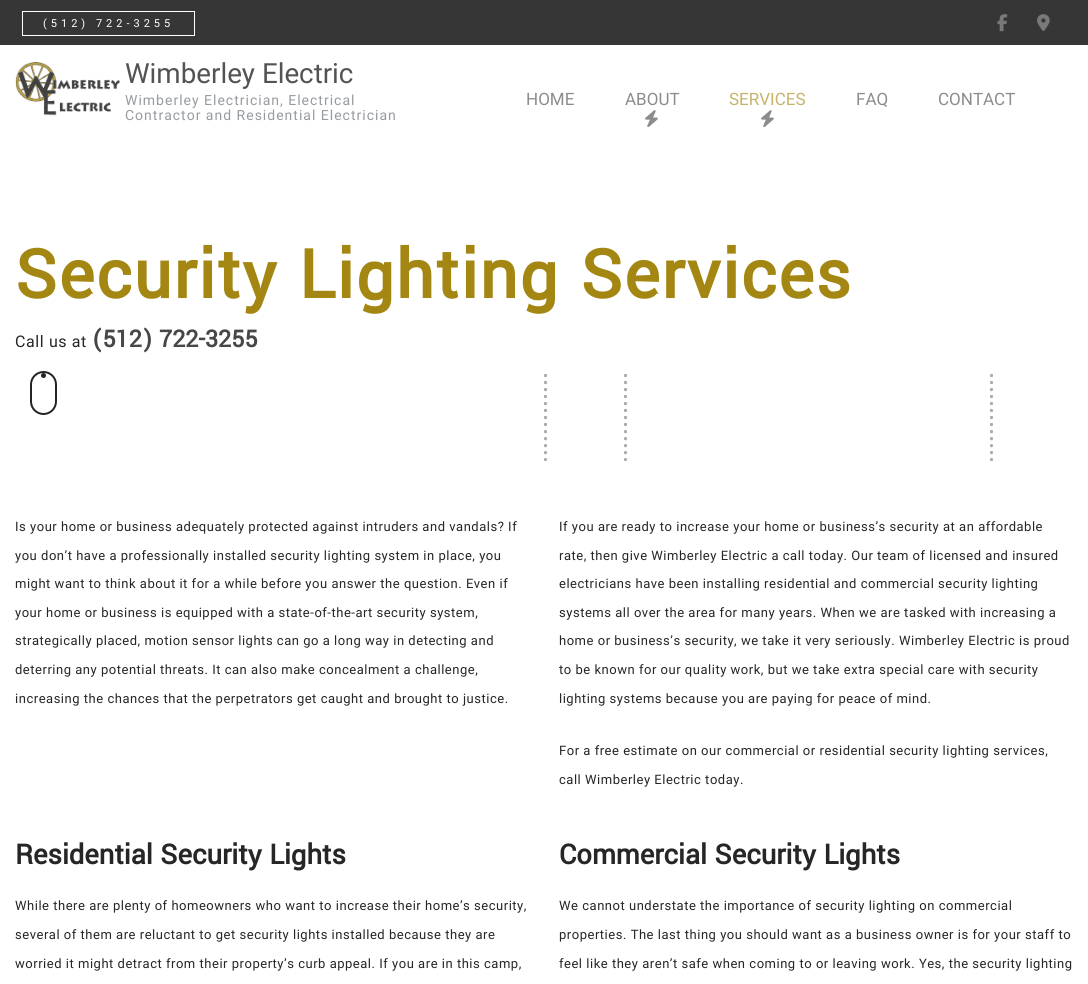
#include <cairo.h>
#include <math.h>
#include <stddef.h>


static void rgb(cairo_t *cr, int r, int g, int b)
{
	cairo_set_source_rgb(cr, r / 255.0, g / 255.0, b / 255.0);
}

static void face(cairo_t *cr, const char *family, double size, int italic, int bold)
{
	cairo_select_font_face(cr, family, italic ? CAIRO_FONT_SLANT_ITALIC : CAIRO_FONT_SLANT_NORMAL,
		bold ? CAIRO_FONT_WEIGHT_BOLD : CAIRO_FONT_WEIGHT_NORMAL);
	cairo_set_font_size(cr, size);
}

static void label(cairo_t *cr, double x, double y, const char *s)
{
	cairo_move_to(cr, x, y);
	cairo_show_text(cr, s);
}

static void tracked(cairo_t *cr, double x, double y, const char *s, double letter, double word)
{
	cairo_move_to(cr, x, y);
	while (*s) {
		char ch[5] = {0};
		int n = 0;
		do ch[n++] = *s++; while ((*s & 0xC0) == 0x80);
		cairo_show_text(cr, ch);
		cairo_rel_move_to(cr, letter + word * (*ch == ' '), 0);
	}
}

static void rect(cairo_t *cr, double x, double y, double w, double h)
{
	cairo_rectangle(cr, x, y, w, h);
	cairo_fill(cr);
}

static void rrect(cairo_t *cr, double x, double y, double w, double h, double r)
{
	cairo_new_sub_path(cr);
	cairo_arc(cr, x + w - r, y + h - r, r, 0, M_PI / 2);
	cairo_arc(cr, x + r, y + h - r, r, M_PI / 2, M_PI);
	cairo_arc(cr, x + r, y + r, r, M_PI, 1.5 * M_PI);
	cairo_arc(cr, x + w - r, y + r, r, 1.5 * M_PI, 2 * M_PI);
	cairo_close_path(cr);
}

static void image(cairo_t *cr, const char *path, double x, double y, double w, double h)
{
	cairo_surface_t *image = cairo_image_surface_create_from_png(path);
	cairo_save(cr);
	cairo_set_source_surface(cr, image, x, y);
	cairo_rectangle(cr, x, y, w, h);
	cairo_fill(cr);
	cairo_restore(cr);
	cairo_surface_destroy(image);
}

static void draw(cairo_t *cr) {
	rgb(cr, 255, 255, 255);
	cairo_paint(cr);
	rgb(cr, 54, 54, 54);
	rect(cr, 0, 0, 1088, 45);
	cairo_rectangle(cr, 22.5, 11.5, 172, 24);
	rgb(cr, 255, 255, 255);
	cairo_set_line_width(cr, 1);
	cairo_stroke(cr);
	face(cr, "Roboto", 11, 0, 0);
	tracked(cr, 43, 27, "(512) 722-3255", 4, 0);
	image(cr, "image0.png", 997, 14, 11, 18);
	image(cr, "image1.png", 1037, 14, 13, 17);
	image(cr, "image2.png", 15, 62, 106, 54);
	face(cr, "Roboto", 27.75, 0, 0);
	rgb(cr, 83, 83, 83);
	label(cr, 125, 83, "Wimberley Electric");
	face(cr, "Roboto", 14, 0, 0);
	rgb(cr, 151, 155, 160);
	tracked(cr, 125, 105, "Wimberley Electrician, Electrical", 1, 0);
	tracked(cr, 125, 120, "Contractor and Residential Electrician", 1, 0);
	face(cr, "Roboto", 17, 0, 0);
	rgb(cr, 140, 140, 140);
	label(cr, 526, 105, "HOME");
	label(cr, 625, 105, "ABOUT");
	image(cr, "image3.png", 645, 110, 13, 18);
	rgb(cr, 198, 180, 107);
	label(cr, 729, 105, "SERVICES");
	image(cr, "image3.png", 761, 110, 13, 18);
	rgb(cr, 140, 140, 140);
	label(cr, 856, 105, "FAQ");
	label(cr, 938, 105, "CONTACT");
	face(cr, "Yantramanav", 74.25, 0, 1);
	rgb(cr, 164, 135, 19);
	tracked(cr, 15, 298, "Security Lighting Services", 2, 0);
	face(cr, "Roboto", 16, 0, 0);
	rgb(cr, 38, 38, 38);
	tracked(cr, 15, 347, "Call us at", 0.6, 0);
	face(cr, "Yantramanav", 26, 0, 1);
	rgb(cr, 71, 71, 71);
	label(cr, 92, 347, "(512) 722-3255");
	rrect(cr, 31, 372, 25, 42, 12.5);
	rgb(cr, 37, 37, 37);
	cairo_set_line_width(cr, 2);
	cairo_stroke(cr);
	cairo_arc(cr, 43.5, 375.5, 2.5, 0, 2 * M_PI);
	cairo_fill(cr);
	image(cr, "image4.png", 544, 374, 3, 87);
	image(cr, "image4.png", 624, 374, 3, 87);
	image(cr, "image4.png", 990, 374, 3, 87);
	face(cr, "Roboto", 13, 0, 0);
	rgb(cr, 38, 38, 38);
	tracked(cr, 15, 531, "Is your home or business adequately protected against intruders and vandals? If", 0.52, 0);
	tracked(cr, 15, 560, "you don’t have a professionally installed security lighting system in place, you", 0.52, 0);
	tracked(cr, 15, 588, "might want to think about it for a while before you answer the question. Even if", 0.52, 0);
	tracked(cr, 15, 617, "your home or business is equipped with a state-of-the-art security system,", 0.52, 0);
	tracked(cr, 15, 645, "strategically placed, motion sensor lights can go a long way in detecting and", 0.52, 0);
	tracked(cr, 15, 674, "deterring any potential threats. It can also make concealment a challenge,", 0.52, 0);
	tracked(cr, 15, 703, "increasing the chances that the perpetrators get caught and brought to justice.", 0.52, 0);
	tracked(cr, 559, 531, "If you are ready to increase your home or business’s security at an affordable", 0.52, 0);
	tracked(cr, 559, 560, "rate, then give Wimberley Electric a call today. Our team of licensed and insured", 0.52, 0);
	tracked(cr, 559, 588, "electricians have been installing residential and commercial security lighting", 0.52, 0);
	tracked(cr, 559, 617, "systems all over the area for many years. When we are tasked with increasing a", 0.52, 0);
	tracked(cr, 559, 645, "home or business’s security, we take it very seriously. Wimberley Electric is proud", 0.52, 0);
	tracked(cr, 559, 674, "to be known for our quality work, but we take extra special care with security", 0.52, 0);
	tracked(cr, 559, 703, "lighting systems because you are paying for peace of mind.", 0.52, 0);
	tracked(cr, 559, 755, "For a free estimate on our commercial or residential security lighting services,", 0.52, 0);
	tracked(cr, 559, 784, "call Wimberley Electric today.", 0.52, 0);
	face(cr, "Yantramanav", 30.4, 0, 1);
	label(cr, 15, 864, "Residential Security Lights");
	face(cr, "Roboto", 13, 0, 0);
	tracked(cr, 15, 910, "While there are plenty of homeowners who want to increase their home’s security,", 0.52, 0);
	tracked(cr, 15, 939, "several of them are reluctant to get security lights installed because they are", 0.52, 0);
	tracked(cr, 15, 968, "worried it might detract from their property’s curb appeal. If you are in this camp,", 0.52, 0);
	face(cr, "Yantramanav", 30.4, 0, 1);
	label(cr, 559, 864, "Commercial Security Lights");
	face(cr, "Roboto", 13, 0, 0);
	tracked(cr, 559, 910, "We cannot understate the importance of security lighting on commercial", 0.52, 0);
	tracked(cr, 559, 939, "properties. The last thing you should want as a business owner is for your staff to", 0.52, 0);
	tracked(cr, 559, 968, "feel like they aren’t safe when coming to or leaving work. Yes, the security lighting", 0.52, 0);
}

int main(void) {
	cairo_surface_t *surface = cairo_image_surface_create(CAIRO_FORMAT_RGB24, 1088, 984);
	cairo_t *cr = cairo_create(surface);
	cairo_font_options_t *options = cairo_font_options_create();
	cairo_font_options_set_hint_metrics(options, CAIRO_HINT_METRICS_OFF);
	cairo_font_options_set_hint_style(options, CAIRO_HINT_STYLE_NONE);
	cairo_set_font_options(cr, options);
	cairo_set_miter_limit(cr, 4);
	draw(cr);
	cairo_surface_write_to_png(surface, "render.png");
	cairo_font_options_destroy(options);
	cairo_destroy(cr);
	cairo_surface_destroy(surface);
	return 0;
}
